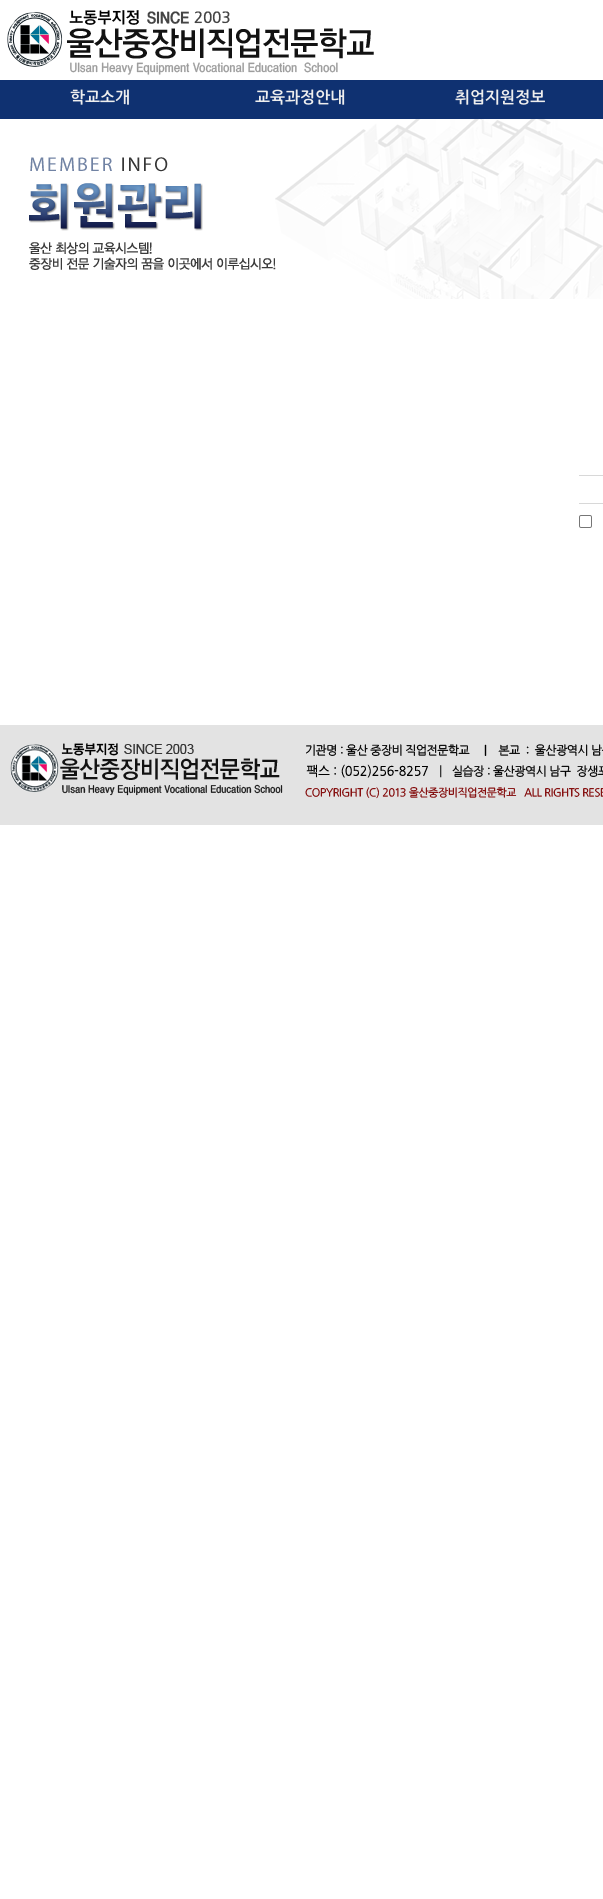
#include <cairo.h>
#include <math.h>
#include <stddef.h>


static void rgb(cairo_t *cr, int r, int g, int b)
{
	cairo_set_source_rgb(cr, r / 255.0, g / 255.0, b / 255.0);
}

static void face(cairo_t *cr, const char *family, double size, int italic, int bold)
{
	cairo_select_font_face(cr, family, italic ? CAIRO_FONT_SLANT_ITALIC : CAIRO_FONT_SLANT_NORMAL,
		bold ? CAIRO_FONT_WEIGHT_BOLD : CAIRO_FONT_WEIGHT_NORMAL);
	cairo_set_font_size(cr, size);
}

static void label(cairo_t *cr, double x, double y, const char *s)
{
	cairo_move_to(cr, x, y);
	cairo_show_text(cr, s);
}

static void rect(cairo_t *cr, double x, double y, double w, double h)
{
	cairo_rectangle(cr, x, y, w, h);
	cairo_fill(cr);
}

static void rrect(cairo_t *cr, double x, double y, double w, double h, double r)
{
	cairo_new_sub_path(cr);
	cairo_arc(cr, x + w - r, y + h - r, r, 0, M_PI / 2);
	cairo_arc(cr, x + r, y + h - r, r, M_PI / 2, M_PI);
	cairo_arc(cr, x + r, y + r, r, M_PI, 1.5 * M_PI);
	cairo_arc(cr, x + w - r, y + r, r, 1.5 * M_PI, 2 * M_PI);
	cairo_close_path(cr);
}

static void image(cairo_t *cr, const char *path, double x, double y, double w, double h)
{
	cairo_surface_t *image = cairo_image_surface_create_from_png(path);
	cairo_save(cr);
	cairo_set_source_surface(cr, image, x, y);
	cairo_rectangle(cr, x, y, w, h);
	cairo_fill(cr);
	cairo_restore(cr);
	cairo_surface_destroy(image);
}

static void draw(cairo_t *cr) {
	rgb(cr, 255, 255, 255);
	cairo_paint(cr);
	image(cr, "image0.png", 7, 10, 367, 65);
	rgb(cr, 15, 49, 113);
	rect(cr, 0, 80, 603, 39);
	face(cr, "NanumGothic", 16, 0, 1);
	rgb(cr, 238, 238, 238);
	label(cr, 70, 103, "학교소개");
	label(cr, 255, 103, "교육과정안내");
	label(cr, 455, 103, "취업지원정보");
	image(cr, "image1.png", 29, 119, 574, 180);
	rgb(cr, 216, 216, 216);
	rect(cr, 579, 475, 24, 1);
	rect(cr, 579, 503, 24, 1);
	rrect(cr, 579.5, 515.5, 12, 12, 1.5);
	rgb(cr, 118, 118, 118);
	cairo_set_line_width(cr, 1);
	cairo_stroke(cr);
	rgb(cr, 227, 227, 227);
	rect(cr, 0, 725, 603, 100);
	image(cr, "image2.png", 10, 743, 273, 53);
	image(cr, "image3.png", 305, 744, 298, 55);
}

int main(void) {
	cairo_surface_t *surface = cairo_image_surface_create(CAIRO_FORMAT_RGB24, 603, 1899);
	cairo_t *cr = cairo_create(surface);
	cairo_font_options_t *options = cairo_font_options_create();
	cairo_font_options_set_hint_metrics(options, CAIRO_HINT_METRICS_OFF);
	cairo_font_options_set_hint_style(options, CAIRO_HINT_STYLE_NONE);
	cairo_set_font_options(cr, options);
	cairo_set_miter_limit(cr, 4);
	draw(cr);
	cairo_surface_write_to_png(surface, "render.png");
	cairo_font_options_destroy(options);
	cairo_destroy(cr);
	cairo_surface_destroy(surface);
	return 0;
}
